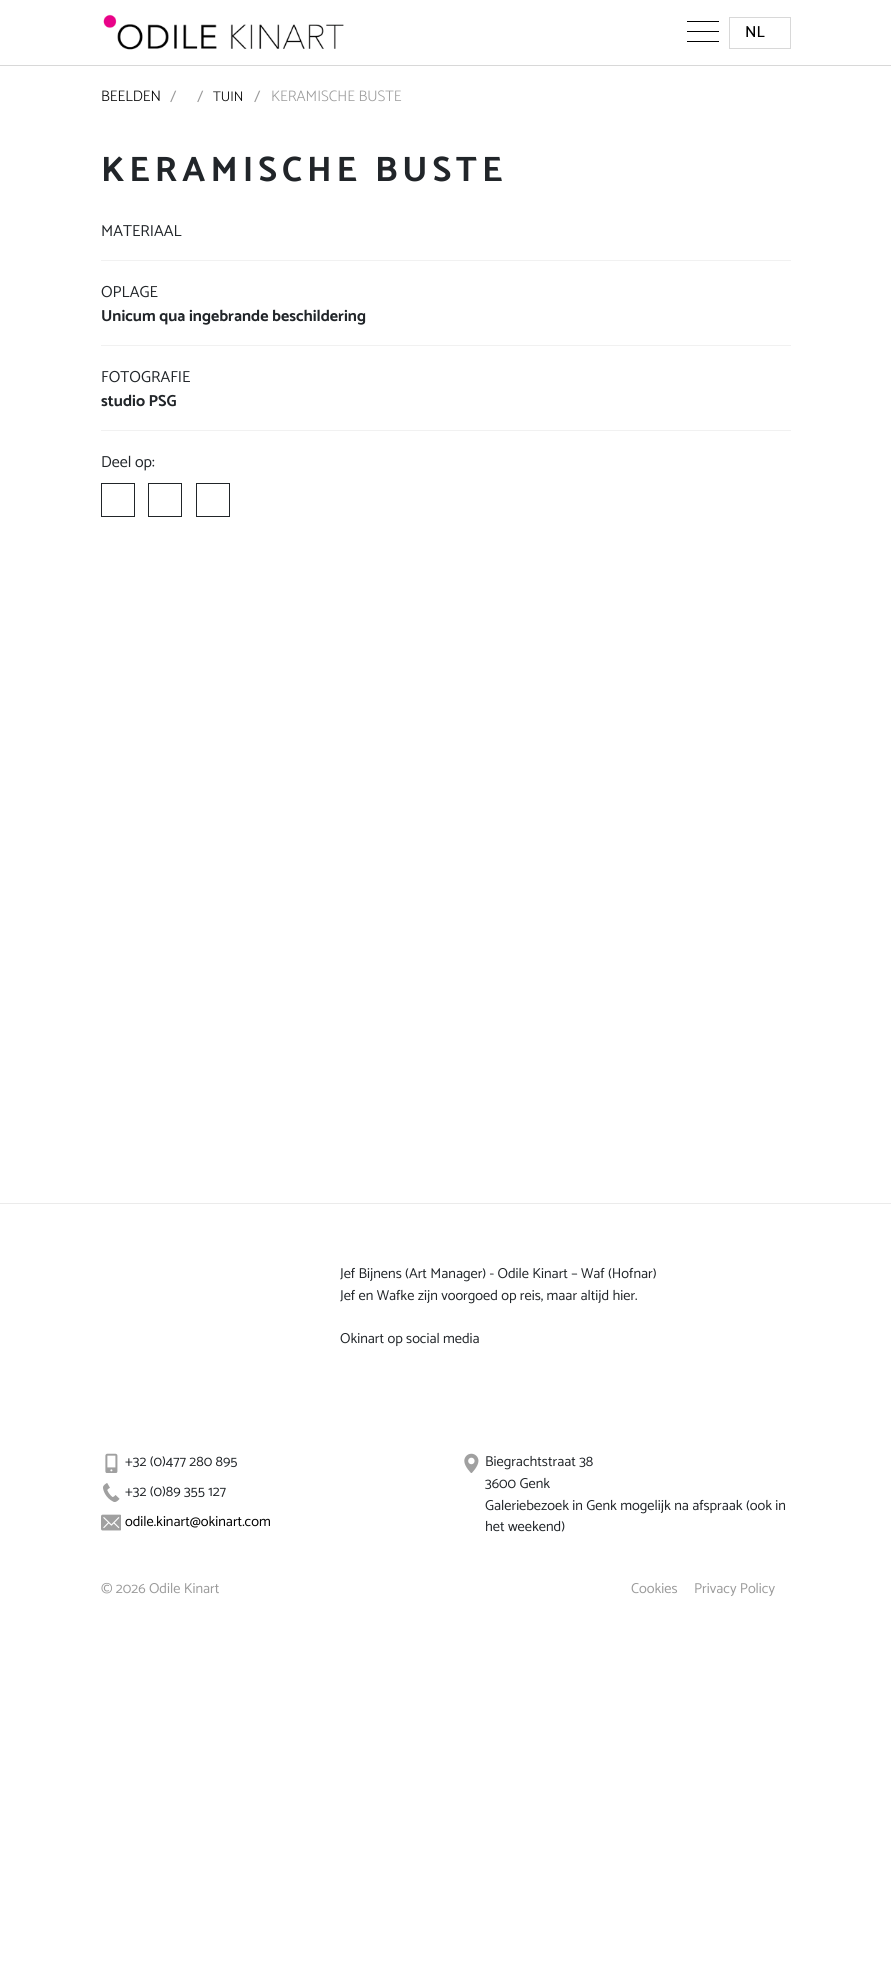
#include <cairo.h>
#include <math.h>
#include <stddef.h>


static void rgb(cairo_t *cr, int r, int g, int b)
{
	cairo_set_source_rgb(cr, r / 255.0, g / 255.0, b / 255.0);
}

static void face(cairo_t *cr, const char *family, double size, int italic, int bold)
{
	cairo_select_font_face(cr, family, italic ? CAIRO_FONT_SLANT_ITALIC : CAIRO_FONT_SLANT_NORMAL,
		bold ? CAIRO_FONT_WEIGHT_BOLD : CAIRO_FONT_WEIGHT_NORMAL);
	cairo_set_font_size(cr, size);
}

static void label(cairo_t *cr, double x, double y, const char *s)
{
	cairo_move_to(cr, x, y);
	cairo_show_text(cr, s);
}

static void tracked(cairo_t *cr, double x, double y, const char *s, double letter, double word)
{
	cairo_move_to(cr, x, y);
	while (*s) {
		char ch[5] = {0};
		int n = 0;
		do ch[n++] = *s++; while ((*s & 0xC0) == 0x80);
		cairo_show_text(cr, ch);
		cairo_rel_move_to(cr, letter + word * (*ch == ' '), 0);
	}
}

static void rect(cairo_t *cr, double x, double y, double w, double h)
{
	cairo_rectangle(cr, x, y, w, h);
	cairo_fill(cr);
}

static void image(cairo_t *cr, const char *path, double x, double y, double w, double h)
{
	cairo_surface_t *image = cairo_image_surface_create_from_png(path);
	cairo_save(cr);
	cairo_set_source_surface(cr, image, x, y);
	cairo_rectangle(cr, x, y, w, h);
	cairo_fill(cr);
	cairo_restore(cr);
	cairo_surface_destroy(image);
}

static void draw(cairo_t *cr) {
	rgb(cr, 255, 255, 255);
	cairo_paint(cr);
	rgb(cr, 216, 216, 216);
	rect(cr, 0, 65, 891, 1);
	image(cr, "image0.png", 103, 14, 241, 36);
	rgb(cr, 0, 0, 0);
	rect(cr, 687, 21, 32, 1);
	rect(cr, 687, 31, 32, 1);
	rect(cr, 687, 41, 32, 1);
	cairo_rectangle(cr, 729.5, 17.5, 61, 31);
	rgb(cr, 216, 216, 216);
	cairo_set_line_width(cr, 1);
	cairo_stroke(cr);
	face(cr, "Catamaran Medium", 16, 0, 0);
	rgb(cr, 0, 0, 0);
	label(cr, 745, 37, "NL");
	face(cr, "Catamaran Light", 15.25, 0, 0);
	label(cr, 101, 101, "BEELDEN");
	face(cr, "Catamaran", 16, 0, 0);
	rgb(cr, 155, 155, 155);
	label(cr, 170, 102, "/");
	label(cr, 197, 102, "/");
	face(cr, "Catamaran Light", 14, 0, 0);
	rgb(cr, 0, 0, 0);
	label(cr, 213, 101, "TUIN");
	face(cr, "Catamaran", 16, 0, 0);
	rgb(cr, 155, 155, 155);
	label(cr, 254, 102, "/");
	face(cr, "Catamaran Light", 15.25, 0, 0);
	label(cr, 271, 101, "KERAMISCHE BUSTE");
	face(cr, "Catamaran", 35.4, 0, 1);
	rgb(cr, 33, 37, 41);
	tracked(cr, 101, 181, "KERAMISCHE BUSTE", 5, 0);
	rgb(cr, 241, 241, 241);
	rect(cr, 101, 260, 690, 1);
	face(cr, "Catamaran", 16, 0, 0);
	rgb(cr, 33, 37, 41);
	label(cr, 101, 236, "MATERIAAL");
	rgb(cr, 241, 241, 241);
	rect(cr, 101, 345, 690, 1);
	rgb(cr, 33, 37, 41);
	label(cr, 101, 297, "OPLAGE");
	face(cr, "Catamaran", 16, 0, 1);
	label(cr, 101, 321, "Unicum qua ingebrande beschildering");
	rgb(cr, 241, 241, 241);
	rect(cr, 101, 430, 690, 1);
	face(cr, "Catamaran", 16, 0, 0);
	rgb(cr, 33, 37, 41);
	label(cr, 101, 382, "FOTOGRAFIE");
	face(cr, "Catamaran", 16, 0, 1);
	label(cr, 101, 406, "studio PSG");
	face(cr, "Catamaran", 16, 0, 0);
	label(cr, 101, 467, "Deel op:");
	cairo_rectangle(cr, 101.5, 483.5, 33, 33);
	cairo_stroke(cr);
	cairo_rectangle(cr, 148.5, 483.5, 33, 33);
	cairo_stroke(cr);
	cairo_rectangle(cr, 196.5, 483.5, 33, 33);
	cairo_stroke(cr);
	rgb(cr, 235, 235, 235);
	rect(cr, 0, 1203, 891, 1);
	face(cr, "Catamaran", 14.4, 0, 0);
	rgb(cr, 33, 37, 41);
	label(cr, 340, 1278, "Jef Bijnens (Art Manager) - Odile Kinart – Waf (Hofnar)");
	label(cr, 340, 1300, "Jef en Wafke zijn voorgoed op reis, maar altijd hier.");
	label(cr, 340, 1343, "Okinart op social media");
	image(cr, "image1.png", 105, 1453, 13, 20);
	label(cr, 125, 1466, "+32 (0)477 280 895");
	image(cr, "image2.png", 103, 1483, 17, 19);
	label(cr, 125, 1496, "+32 (0)89 355 127");
	image(cr, "image3.png", 101, 1514, 20, 17);
	rgb(cr, 0, 0, 0);
	label(cr, 125, 1526, "odile.kinart@okinart.com");
	image(cr, "image4.png", 464, 1453, 15, 20);
	rgb(cr, 33, 37, 41);
	label(cr, 485, 1466, "Biegrachtstraat 38");
	label(cr, 485, 1488, "3600 Genk");
	label(cr, 485, 1510, "Galeriebezoek in Genk mogelijk na afspraak (ook in");
	label(cr, 485, 1531, "het weekend)");
	rgb(cr, 155, 155, 155);
	label(cr, 101, 1593, "© 2026 Odile Kinart");
	label(cr, 631, 1593, "Cookies");
	label(cr, 694, 1593, "Privacy Policy");
}

int main(void) {
	cairo_surface_t *surface = cairo_image_surface_create(CAIRO_FORMAT_RGB24, 891, 1969);
	cairo_t *cr = cairo_create(surface);
	cairo_font_options_t *options = cairo_font_options_create();
	cairo_font_options_set_hint_metrics(options, CAIRO_HINT_METRICS_OFF);
	cairo_font_options_set_hint_style(options, CAIRO_HINT_STYLE_NONE);
	cairo_set_font_options(cr, options);
	cairo_set_miter_limit(cr, 4);
	draw(cr);
	cairo_surface_write_to_png(surface, "render.png");
	cairo_font_options_destroy(options);
	cairo_destroy(cr);
	cairo_surface_destroy(surface);
	return 0;
}
